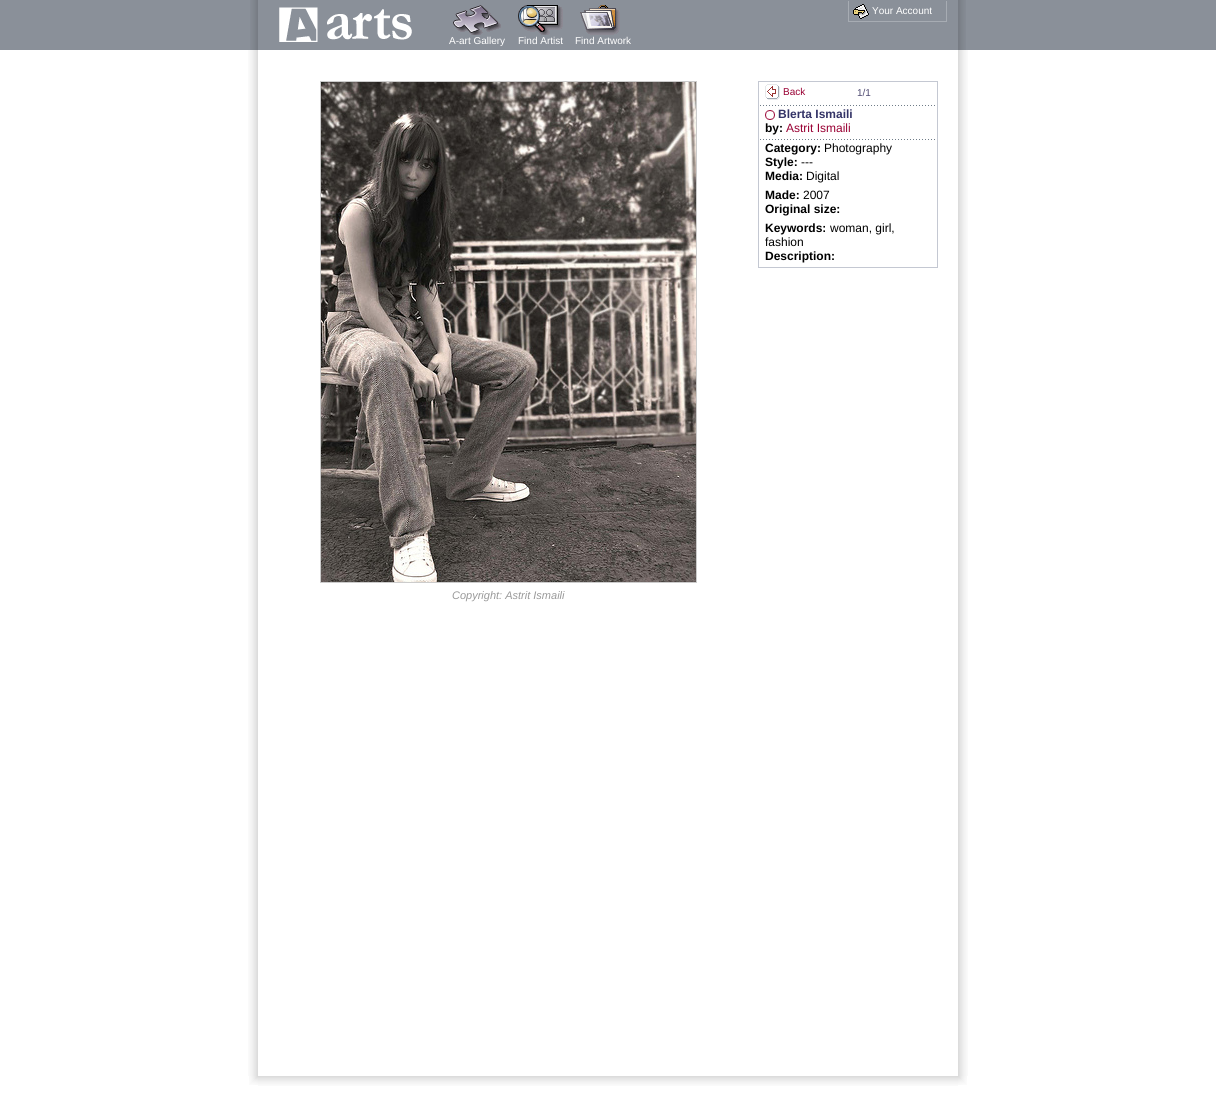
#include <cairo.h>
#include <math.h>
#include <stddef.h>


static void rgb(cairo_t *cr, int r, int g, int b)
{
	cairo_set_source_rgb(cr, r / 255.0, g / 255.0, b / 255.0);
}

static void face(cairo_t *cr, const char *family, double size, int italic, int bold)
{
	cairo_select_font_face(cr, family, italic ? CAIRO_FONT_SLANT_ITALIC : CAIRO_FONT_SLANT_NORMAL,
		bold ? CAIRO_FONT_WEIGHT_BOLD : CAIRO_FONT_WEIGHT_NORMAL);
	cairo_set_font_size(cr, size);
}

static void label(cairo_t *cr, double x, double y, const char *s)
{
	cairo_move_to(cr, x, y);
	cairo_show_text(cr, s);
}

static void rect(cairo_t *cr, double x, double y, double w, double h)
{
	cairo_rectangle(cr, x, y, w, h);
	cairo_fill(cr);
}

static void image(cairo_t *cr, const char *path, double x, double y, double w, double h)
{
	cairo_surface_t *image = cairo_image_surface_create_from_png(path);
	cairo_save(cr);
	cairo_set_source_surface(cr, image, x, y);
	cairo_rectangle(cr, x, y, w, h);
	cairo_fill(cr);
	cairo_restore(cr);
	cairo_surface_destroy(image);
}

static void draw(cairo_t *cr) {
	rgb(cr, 255, 255, 255);
	cairo_paint(cr);
	rgb(cr, 138, 144, 153);
	rect(cr, 0, 0, 250, 50);
	image(cr, "image0.png", 250, 0, 8, 50);
	image(cr, "image1.png", 248, 50, 10, 1026);
	image(cr, "image2.png", 249, 1076, 9, 9);
	rect(cr, 258, 0, 700, 50);
	image(cr, "image3.png", 279, 7, 133, 35);
	rgb(cr, 167, 172, 179);
	rect(cr, 946, 1, 1, 21);
	rect(cr, 848, 21, 99, 1);
	rect(cr, 848, 1, 1, 21);
	image(cr, "image4.png", 853, 4, 16, 15);
	face(cr, "Liberation Sans", 10, 0, 0);
	rgb(cr, 255, 255, 255);
	label(cr, 872, 14, "Your Account");
	image(cr, "image5.png", 453, 5, 48, 30);
	label(cr, 449, 44, "A-art Gallery");
	image(cr, "image6.png", 518, 5, 45, 30);
	label(cr, 518, 44, "Find Artist");
	image(cr, "image7.png", 580, 5, 40, 30);
	label(cr, 575, 44, "Find Artwork");
	cairo_rectangle(cr, 758.5, 81.5, 179, 186);
	rgb(cr, 196, 200, 210);
	cairo_set_line_width(cr, 1);
	cairo_stroke(cr);
	image(cr, "image8.png", 765, 84, 15, 16);
	rgb(cr, 153, 0, 51);
	label(cr, 783, 95, "Back");
	rgb(cr, 79, 75, 114);
	label(cr, 857, 96, "1/1");
	image(cr, "image9.png", 760, 105, 175, 1);
	image(cr, "image10.png", 765, 110, 10, 10);
	face(cr, "Liberation Sans", 12, 0, 1);
	rgb(cr, 51, 51, 102);
	label(cr, 778, 118, "Blerta Ismaili");
	rgb(cr, 0, 0, 0);
	label(cr, 765, 132, "by:");
	face(cr, "Liberation Sans", 12, 0, 0);
	rgb(cr, 153, 0, 51);
	label(cr, 786, 132, "Astrit Ismaili");
	image(cr, "image9.png", 760, 139, 175, 1);
	face(cr, "Liberation Sans", 12, 0, 1);
	rgb(cr, 0, 0, 0);
	label(cr, 765, 152, "Category:");
	face(cr, "Liberation Sans", 12, 0, 0);
	label(cr, 824, 152, "Photography");
	face(cr, "Liberation Sans", 12, 0, 1);
	label(cr, 765, 166, "Style:");
	face(cr, "Liberation Sans", 12, 0, 0);
	label(cr, 801, 166, "---");
	face(cr, "Liberation Sans", 12, 0, 1);
	label(cr, 765, 180, "Media:");
	face(cr, "Liberation Sans", 12, 0, 0);
	label(cr, 806, 180, "Digital");
	face(cr, "Liberation Sans", 12, 0, 1);
	label(cr, 765, 199, "Made:");
	face(cr, "Liberation Sans", 12, 0, 0);
	label(cr, 803, 199, "2007");
	face(cr, "Liberation Sans", 12, 0, 1);
	label(cr, 765, 213, "Original size:");
	label(cr, 765, 232, "Keywords:");
	face(cr, "Liberation Sans", 12, 0, 0);
	label(cr, 830, 232, "woman, girl,");
	label(cr, 765, 246, "fashion");
	face(cr, "Liberation Sans", 12, 0, 1);
	label(cr, 765, 260, "Description:");
	cairo_rectangle(cr, 320.5, 81.5, 376, 501);
	rgb(cr, 204, 204, 204);
	cairo_stroke(cr);
	image(cr, "image11.png", 321, 82, 375, 500);
	face(cr, "Liberation Sans", 11, 1, 0);
	rgb(cr, 153, 153, 153);
	label(cr, 452, 599, "Copyright: Astrit Ismaili");
	image(cr, "image12.png", 258, 1076, 700, 10);
	rgb(cr, 138, 144, 153);
	rect(cr, 966, 0, 250, 50);
	image(cr, "image13.png", 958, 0, 8, 50);
	image(cr, "image14.png", 958, 50, 10, 1026);
	image(cr, "image15.png", 958, 1076, 9, 9);
}

int main(void) {
	cairo_surface_t *surface = cairo_image_surface_create(CAIRO_FORMAT_RGB24, 1216, 1094);
	cairo_t *cr = cairo_create(surface);
	cairo_font_options_t *options = cairo_font_options_create();
	cairo_font_options_set_hint_metrics(options, CAIRO_HINT_METRICS_OFF);
	cairo_font_options_set_hint_style(options, CAIRO_HINT_STYLE_NONE);
	cairo_set_font_options(cr, options);
	cairo_set_miter_limit(cr, 4);
	draw(cr);
	cairo_surface_write_to_png(surface, "render.png");
	cairo_font_options_destroy(options);
	cairo_destroy(cr);
	cairo_surface_destroy(surface);
	return 0;
}
